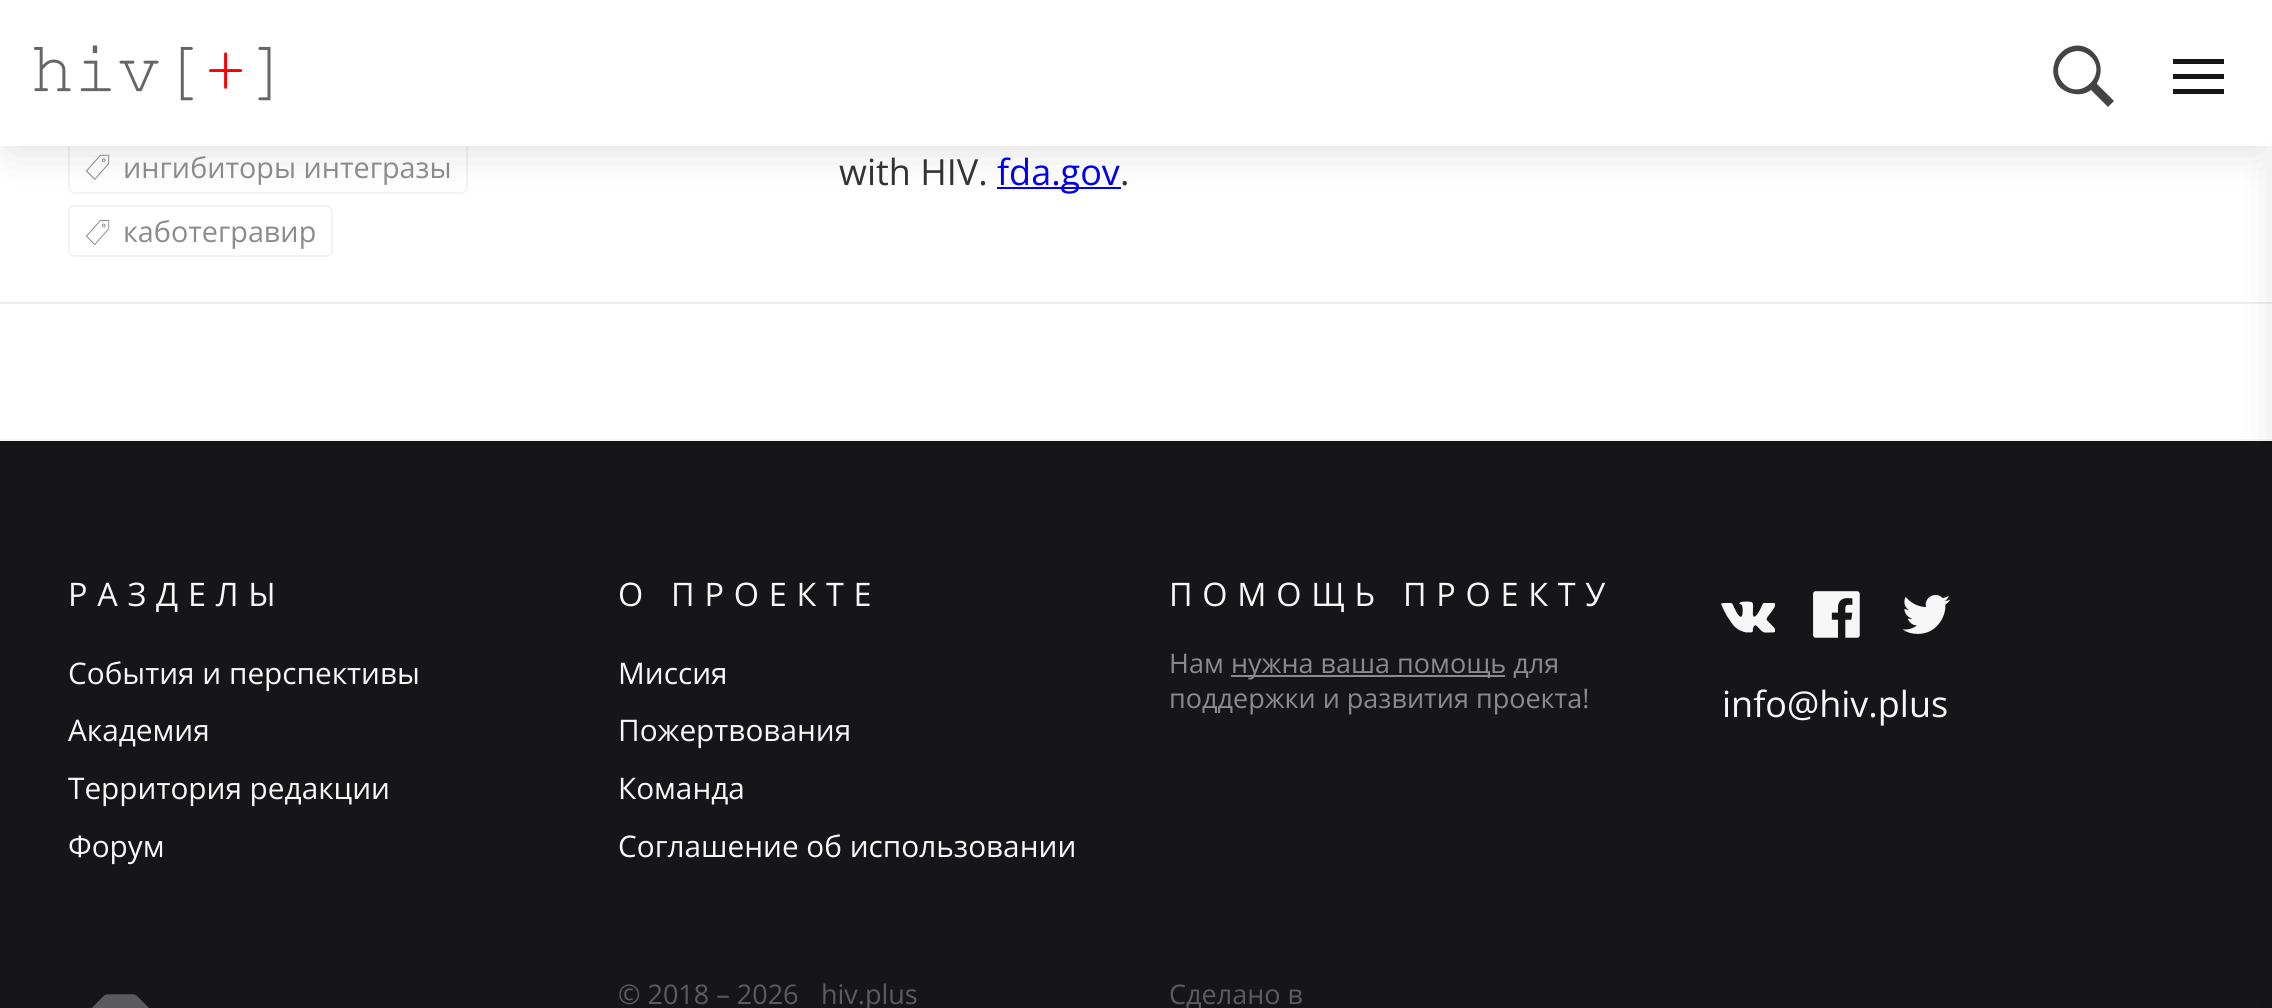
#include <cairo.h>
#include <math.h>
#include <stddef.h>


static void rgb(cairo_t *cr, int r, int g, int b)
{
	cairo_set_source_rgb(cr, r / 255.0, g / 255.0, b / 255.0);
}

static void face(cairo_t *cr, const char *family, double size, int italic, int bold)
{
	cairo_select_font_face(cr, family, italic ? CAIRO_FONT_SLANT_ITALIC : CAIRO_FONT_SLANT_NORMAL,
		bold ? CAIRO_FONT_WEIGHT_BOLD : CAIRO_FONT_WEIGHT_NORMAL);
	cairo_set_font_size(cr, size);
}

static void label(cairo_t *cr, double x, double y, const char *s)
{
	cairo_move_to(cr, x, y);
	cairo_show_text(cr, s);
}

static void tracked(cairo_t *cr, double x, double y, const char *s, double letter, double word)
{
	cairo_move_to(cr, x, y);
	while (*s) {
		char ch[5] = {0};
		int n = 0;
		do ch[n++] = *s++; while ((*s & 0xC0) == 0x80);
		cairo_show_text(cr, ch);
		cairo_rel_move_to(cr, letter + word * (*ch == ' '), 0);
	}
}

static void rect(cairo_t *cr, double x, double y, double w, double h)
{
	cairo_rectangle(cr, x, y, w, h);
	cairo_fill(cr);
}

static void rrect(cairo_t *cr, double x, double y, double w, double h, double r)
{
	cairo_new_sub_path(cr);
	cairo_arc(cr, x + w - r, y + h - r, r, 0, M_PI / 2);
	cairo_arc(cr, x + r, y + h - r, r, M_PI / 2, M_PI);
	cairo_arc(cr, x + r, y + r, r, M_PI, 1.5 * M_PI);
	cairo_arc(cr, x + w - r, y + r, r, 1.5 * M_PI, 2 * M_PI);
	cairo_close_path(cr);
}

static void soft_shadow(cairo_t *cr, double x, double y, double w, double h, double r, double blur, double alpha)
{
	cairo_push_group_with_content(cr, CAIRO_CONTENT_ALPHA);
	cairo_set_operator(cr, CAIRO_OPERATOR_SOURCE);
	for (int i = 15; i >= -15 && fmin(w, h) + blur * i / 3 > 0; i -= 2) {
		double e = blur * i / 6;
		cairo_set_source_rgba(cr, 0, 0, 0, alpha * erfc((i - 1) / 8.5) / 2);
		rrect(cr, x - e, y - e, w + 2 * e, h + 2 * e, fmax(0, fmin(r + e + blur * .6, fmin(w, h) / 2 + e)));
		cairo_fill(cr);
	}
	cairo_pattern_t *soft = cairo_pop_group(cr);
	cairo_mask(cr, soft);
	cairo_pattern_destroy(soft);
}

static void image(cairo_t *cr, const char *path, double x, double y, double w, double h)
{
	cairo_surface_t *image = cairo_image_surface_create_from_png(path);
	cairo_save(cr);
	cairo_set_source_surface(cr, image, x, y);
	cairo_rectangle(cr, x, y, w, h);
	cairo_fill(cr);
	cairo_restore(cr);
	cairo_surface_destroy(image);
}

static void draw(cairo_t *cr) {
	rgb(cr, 247, 247, 247);
	cairo_paint(cr);
	rgb(cr, 255, 255, 255);
	rect(cr, 0, 146, 2272, 293);
	rrect(cr, 69, 141, 398, 52, 6);
	rgb(cr, 242, 242, 242);
	cairo_stroke(cr);
	image(cr, "image1.png", 86, 154, 24, 26);
	rrect(cr, 69, 206, 263, 50, 6);
	cairo_stroke(cr);
	rgb(cr, 0, 0, 238);
	rect(cr, 997, 187, 124, 2);
	rgb(cr, 0, 0, 0);
	soft_shadow(cr, 11, 23, 2250, 123, 0, 22.5, 0.15);
	rgb(cr, 255, 255, 255);
	rect(cr, 0, 0, 2272, 146);
	image(cr, "image0.png", 34, 45, 237, 56);
	rgb(cr, 68, 68, 68);
	cairo_new_path(cr);
	cairo_move_to(cr, 2097, 83);
	cairo_line_to(cr, 2097, 84);
	cairo_line_to(cr, 2114, 101);
	cairo_line_to(cr, 2108, 107);
	cairo_line_to(cr, 2091, 90);
	cairo_curve_to(cr, 2081, 98, 2064, 94, 2057, 84);
	cairo_curve_to(cr, 2054, 78, 2052, 72, 2054, 65);
	cairo_curve_to(cr, 2055, 59, 2059, 54, 2064, 50);
	cairo_curve_to(cr, 2086, 35, 2110, 61, 2097, 83);
	cairo_close_path(cr);
	cairo_move_to(cr, 2091, 57);
	cairo_curve_to(cr, 2073, 39, 2046, 66, 2064, 84);
	cairo_curve_to(cr, 2081, 101, 2108, 74, 2091, 57);
	cairo_close_path(cr);
	cairo_fill(cr);
	rgb(cr, 22, 22, 24);
	cairo_new_path(cr);
	cairo_move_to(cr, 2173, 79);
	cairo_line_to(cr, 2173, 74);
	cairo_line_to(cr, 2224, 74);
	cairo_line_to(cr, 2224, 79);
	cairo_close_path(cr);
	cairo_move_to(cr, 2173, 64);
	cairo_line_to(cr, 2173, 59);
	cairo_line_to(cr, 2224, 59);
	cairo_line_to(cr, 2224, 64);
	cairo_close_path(cr);
	cairo_move_to(cr, 2173, 94);
	cairo_line_to(cr, 2173, 89);
	cairo_line_to(cr, 2224, 89);
	cairo_line_to(cr, 2224, 94);
	cairo_close_path(cr);
	cairo_fill(cr);
	rgb(cr, 237, 237, 237);
	rect(cr, 0, 302, 2272, 2);
	rgb(cr, 22, 22, 24);
	rect(cr, 0, 441, 2272, 567);
	rgb(cr, 0, 0, 0);
	soft_shadow(cr, 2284, 169, 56, 839, 0, 22.5, 0.15);
	face(cr, "Open Sans", 28.75, 0, 0);
	rgb(cr, 139, 139, 140);
	label(cr, 123, 178, "ингибиторы интегразы");
	image(cr, "image2.png", 85, 220, 25, 26);
	label(cr, 123, 242, "каботегравир");
	face(cr, "Open Sans", 36, 0, 0);
	rgb(cr, 51, 51, 51);
	label(cr, 839, 185, "with HIV.");
	rgb(cr, 0, 0, 238);
	label(cr, 997, 185, "fda.gov");
	rgb(cr, 51, 51, 51);
	label(cr, 1120, 185, ".");
	face(cr, "Open Sans", 32.4, 0, 0);
	rgb(cr, 247, 247, 247);
	tracked(cr, 68, 606, "РАЗДЕЛЫ", 9.75, 0);
	face(cr, "Open Sans", 29.75, 0, 0);
	label(cr, 68, 684, "События и перспективы");
	label(cr, 68, 741, "Академия");
	label(cr, 68, 799, "Территория редакции");
	label(cr, 68, 857, "Форум");
	face(cr, "Open Sans", 32.4, 0, 0);
	tracked(cr, 618, 606, "О ПРОЕКТЕ", 9.75, 0);
	face(cr, "Open Sans", 29.75, 0, 0);
	label(cr, 618, 684, "Миссия");
	label(cr, 618, 741, "Пожертвования");
	label(cr, 618, 799, "Команда");
	label(cr, 618, 857, "Соглашение об использовании");
	face(cr, "Open Sans", 32.4, 0, 0);
	tracked(cr, 1169, 606, "ПОМОЩЬ ПРОЕКТУ", 9.75, 0);
	face(cr, "Open Sans", 27, 0, 0);
	rgb(cr, 139, 139, 140);
	label(cr, 1169, 673, "Нам");
	rect(cr, 1231, 675, 274, 2);
	label(cr, 1231, 673, "нужна ваша помощь для");
	label(cr, 1169, 708, "поддержки и развития проекта!");
	image(cr, "image3.png", 1721, 601, 54, 32);
	image(cr, "image4.png", 1813, 591, 47, 47);
	image(cr, "image5.png", 1902, 595, 49, 39);
	face(cr, "Open Sans", 36, 0, 0);
	rgb(cr, 247, 247, 247);
	label(cr, 1722, 717, "info@hiv.plus");
	image(cr, "image6.png", 92, 994, 57, 14);
	face(cr, "Open Sans", 27, 0, 0);
	rgb(cr, 92, 92, 93);
	label(cr, 618, 1004, "© 2018 – 2026");
	label(cr, 821, 1004, "hiv.plus");
	label(cr, 1169, 1004, "Сделано в");
}

int main(void) {
	cairo_surface_t *surface = cairo_image_surface_create(CAIRO_FORMAT_RGB24, 2272, 1008);
	cairo_t *cr = cairo_create(surface);
	cairo_font_options_t *options = cairo_font_options_create();
	cairo_font_options_set_hint_metrics(options, CAIRO_HINT_METRICS_OFF);
	cairo_font_options_set_hint_style(options, CAIRO_HINT_STYLE_NONE);
	cairo_set_font_options(cr, options);
	cairo_set_miter_limit(cr, 4);
	draw(cr);
	cairo_surface_write_to_png(surface, "render.png");
	cairo_font_options_destroy(options);
	cairo_destroy(cr);
	cairo_surface_destroy(surface);
	return 0;
}
